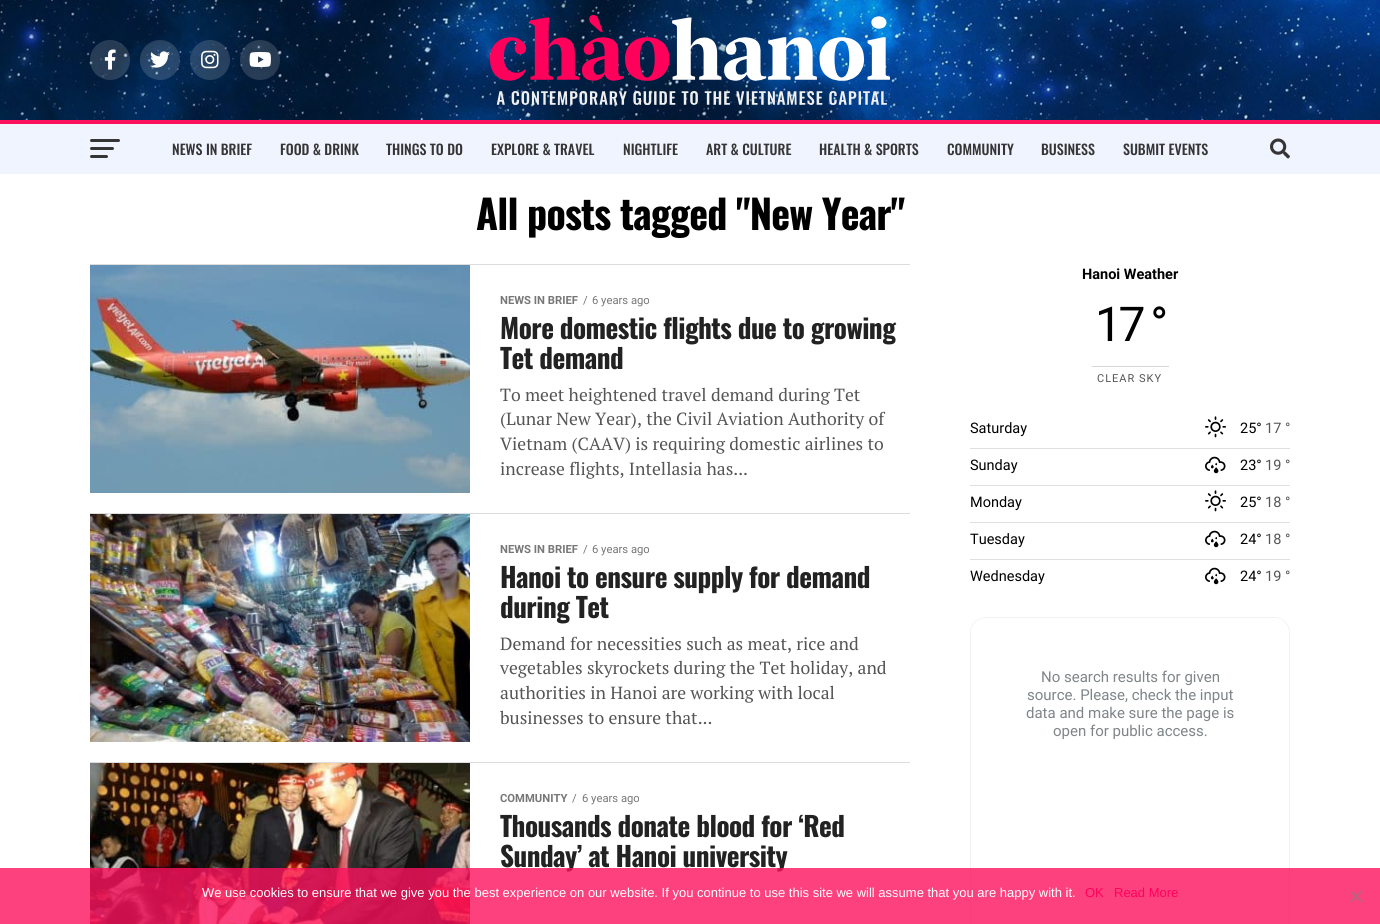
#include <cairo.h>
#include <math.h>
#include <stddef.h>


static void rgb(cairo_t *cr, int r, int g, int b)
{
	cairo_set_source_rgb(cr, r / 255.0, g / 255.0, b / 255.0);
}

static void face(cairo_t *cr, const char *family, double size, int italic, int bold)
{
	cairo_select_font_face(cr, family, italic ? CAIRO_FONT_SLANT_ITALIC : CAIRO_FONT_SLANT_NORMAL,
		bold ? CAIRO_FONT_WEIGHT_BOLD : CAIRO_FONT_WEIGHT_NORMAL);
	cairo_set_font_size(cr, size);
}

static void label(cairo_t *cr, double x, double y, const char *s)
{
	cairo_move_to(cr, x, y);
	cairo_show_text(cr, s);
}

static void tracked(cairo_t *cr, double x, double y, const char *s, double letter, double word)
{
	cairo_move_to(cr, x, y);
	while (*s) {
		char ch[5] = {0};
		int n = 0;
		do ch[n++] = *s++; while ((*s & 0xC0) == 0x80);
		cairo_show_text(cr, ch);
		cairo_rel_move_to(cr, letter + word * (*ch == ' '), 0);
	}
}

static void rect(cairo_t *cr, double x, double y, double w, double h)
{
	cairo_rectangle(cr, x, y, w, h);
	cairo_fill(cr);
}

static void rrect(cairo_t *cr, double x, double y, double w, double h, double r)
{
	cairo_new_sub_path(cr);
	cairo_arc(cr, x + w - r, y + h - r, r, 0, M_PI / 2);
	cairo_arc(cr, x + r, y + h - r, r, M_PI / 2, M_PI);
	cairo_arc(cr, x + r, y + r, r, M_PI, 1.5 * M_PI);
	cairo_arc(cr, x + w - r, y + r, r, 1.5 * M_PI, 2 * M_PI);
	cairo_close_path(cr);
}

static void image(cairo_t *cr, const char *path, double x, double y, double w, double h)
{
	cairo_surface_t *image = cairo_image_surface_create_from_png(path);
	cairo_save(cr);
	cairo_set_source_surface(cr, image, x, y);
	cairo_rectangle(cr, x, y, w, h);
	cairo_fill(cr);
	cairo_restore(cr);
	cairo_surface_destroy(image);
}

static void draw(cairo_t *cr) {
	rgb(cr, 255, 255, 255);
	cairo_paint(cr);
	image(cr, "image0.png", 0, 0, 1380, 120);
	rgb(cr, 252, 17, 94);
	rect(cr, 0, 120, 1380, 4);
	cairo_set_source_rgba(cr, 1, 1, 1, 0.15);
	cairo_arc(cr, 110, 60, 20, 0, 2 * M_PI);
	cairo_fill(cr);
	image(cr, "image1.png", 104, 49, 12, 21);
	cairo_arc(cr, 160, 60, 20, 0, 2 * M_PI);
	cairo_fill(cr);
	image(cr, "image2.png", 150, 51, 20, 17);
	cairo_arc(cr, 210, 60, 20, 0, 2 * M_PI);
	cairo_fill(cr);
	image(cr, "image3.png", 201, 50, 18, 19);
	cairo_arc(cr, 260, 60, 20, 0, 2 * M_PI);
	cairo_fill(cr);
	image(cr, "image4.png", 249, 52, 22, 15);
	image(cr, "image5.png", 490, 15, 400, 90);
	rgb(cr, 239, 244, 255);
	rect(cr, 0, 124, 1380, 50);
	rgb(cr, 53, 53, 53);
	rrect(cr, 90, 139, 30, 3, 1.5);
	cairo_fill(cr);
	rrect(cr, 90, 147, 24, 3, 1.5);
	cairo_fill(cr);
	rrect(cr, 90, 155, 18, 3, 1.5);
	cairo_fill(cr);
	face(cr, "Oswald Medium", 14, 0, 0);
	label(cr, 172, 155, "NEWS IN BRIEF");
	label(cr, 280, 155, "FOOD & DRINK");
	label(cr, 386, 155, "THINGS TO DO");
	label(cr, 491, 155, "EXPLORE & TRAVEL");
	label(cr, 623, 155, "NIGHTLIFE");
	label(cr, 706, 155, "ART & CULTURE");
	label(cr, 819, 155, "HEALTH & SPORTS");
	label(cr, 947, 155, "COMMUNITY");
	label(cr, 1041, 155, "BUSINESS");
	label(cr, 1123, 155, "SUBMIT EVENTS");
	image(cr, "image6.png", 1270, 138, 20, 21);
	face(cr, "Oswald", 40, 0, 1);
	rgb(cr, 0, 0, 0);
	tracked(cr, 476, 230, "All posts tagged \"New Year\"", -0.8, 0);
	rgb(cr, 221, 221, 221);
	rect(cr, 90, 264, 820, 1);
	image(cr, "image7.png", 90, 265, 380, 228);
	face(cr, "Roboto", 11.25, 0, 1);
	rgb(cr, 119, 119, 119);
	label(cr, 500, 304, "NEWS IN BRIEF");
	face(cr, "Roboto", 11.25, 0, 0);
	label(cr, 583, 304, "/");
	label(cr, 592, 304, "6 years ago");
	face(cr, "Oswald", 27.25, 0, 1);
	rgb(cr, 34, 34, 34);
	tracked(cr, 500, 339, "More domestic flights due to growing", -0.55, 0);
	tracked(cr, 500, 369, "Tet demand", -0.55, 0);
	face(cr, "PT Serif", 17.6, 0, 0);
	rgb(cr, 85, 85, 85);
	label(cr, 500, 401, "To meet heightened travel demand during Tet");
	label(cr, 500, 425, "(Lunar New Year), the Civil Aviation Authority of");
	label(cr, 500, 450, "Vietnam (CAAV) is requiring domestic airlines to");
	label(cr, 500, 475, "increase flights, Intellasia has...");
	rgb(cr, 221, 221, 221);
	rect(cr, 90, 513, 820, 1);
	image(cr, "image8.png", 90, 514, 380, 228);
	face(cr, "Roboto", 11.25, 0, 1);
	rgb(cr, 119, 119, 119);
	label(cr, 500, 553, "NEWS IN BRIEF");
	face(cr, "Roboto", 11.25, 0, 0);
	label(cr, 583, 553, "/");
	label(cr, 592, 553, "6 years ago");
	face(cr, "Oswald", 27.25, 0, 1);
	rgb(cr, 34, 34, 34);
	tracked(cr, 500, 588, "Hanoi to ensure supply for demand", -0.55, 0);
	tracked(cr, 500, 618, "during Tet", -0.55, 0);
	face(cr, "PT Serif", 17.6, 0, 0);
	rgb(cr, 85, 85, 85);
	label(cr, 500, 650, "Demand for necessities such as meat, rice and");
	label(cr, 500, 674, "vegetables skyrockets during the Tet holiday, and");
	label(cr, 500, 699, "authorities in Hanoi are working with local");
	label(cr, 500, 724, "businesses to ensure that...");
	rgb(cr, 221, 221, 221);
	rect(cr, 90, 762, 820, 1);
	image(cr, "image9.png", 90, 763, 380, 161);
	face(cr, "Roboto", 11.25, 0, 1);
	rgb(cr, 119, 119, 119);
	label(cr, 500, 802, "COMMUNITY");
	face(cr, "Roboto", 11.25, 0, 0);
	label(cr, 572, 802, "/");
	label(cr, 582, 802, "6 years ago");
	face(cr, "Oswald", 27.25, 0, 1);
	rgb(cr, 34, 34, 34);
	tracked(cr, 500, 837, "Thousands donate blood for ‘Red", -0.55, 0);
	tracked(cr, 500, 867, "Sunday’ at Hanoi university", -0.55, 0);
	face(cr, "Roboto", 14.5, 0, 1);
	rgb(cr, 0, 0, 0);
	label(cr, 1082, 279, "Hanoi Weather");
	face(cr, "Roboto", 48, 0, 0);
	tracked(cr, 1095, 341, "17 °", -3.5, 0);
	rgb(cr, 214, 214, 214);
	rect(cr, 1092, 366, 77, 1);
	face(cr, "Roboto", 11, 0, 0);
	rgb(cr, 85, 85, 85);
	tracked(cr, 1097, 382, "CLEAR SKY", 1, 0);
	face(cr, "Roboto", 14.5, 0, 0);
	rgb(cr, 0, 0, 0);
	label(cr, 970, 433, "Saturday");
	image(cr, "image10.png", 1205, 416, 21, 22);
	label(cr, 1240, 433, "25°");
	rgb(cr, 85, 85, 85);
	label(cr, 1265, 433, "17 °");
	rgb(cr, 223, 223, 223);
	rect(cr, 970, 448, 320, 1);
	rgb(cr, 0, 0, 0);
	label(cr, 970, 470, "Sunday");
	image(cr, "image11.png", 1205, 456, 21, 18);
	label(cr, 1240, 470, "23°");
	rgb(cr, 85, 85, 85);
	label(cr, 1265, 470, "19 °");
	rgb(cr, 223, 223, 223);
	rect(cr, 970, 485, 320, 1);
	rgb(cr, 0, 0, 0);
	label(cr, 970, 507, "Monday");
	image(cr, "image10.png", 1205, 490, 21, 22);
	label(cr, 1240, 507, "25°");
	rgb(cr, 85, 85, 85);
	label(cr, 1265, 507, "18 °");
	rgb(cr, 223, 223, 223);
	rect(cr, 970, 522, 320, 1);
	rgb(cr, 0, 0, 0);
	label(cr, 970, 544, "Tuesday");
	image(cr, "image11.png", 1205, 530, 21, 18);
	label(cr, 1240, 544, "24°");
	rgb(cr, 85, 85, 85);
	label(cr, 1265, 544, "18 °");
	rgb(cr, 223, 223, 223);
	rect(cr, 970, 559, 320, 1);
	rgb(cr, 0, 0, 0);
	label(cr, 970, 581, "Wednesday");
	image(cr, "image11.png", 1205, 567, 21, 18);
	label(cr, 1240, 581, "24°");
	rgb(cr, 85, 85, 85);
	label(cr, 1265, 581, "19 °");
	rrect(cr, 970.5, 617.5, 319, 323, 15.5);
	rgb(cr, 241, 241, 241);
	cairo_set_line_width(cr, 1);
	cairo_stroke(cr);
	rgb(cr, 255, 255, 255);
	rrect(cr, 971, 618, 318, 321, 15);
	cairo_fill(cr);
	face(cr, "Roboto", 15, 0, 0);
	rgb(cr, 127, 133, 136);
	label(cr, 1041, 682, "No search results for given");
	label(cr, 1027, 700, "source. Please, check the input");
	label(cr, 1026, 718, "data and make sure the page is");
	label(cr, 1053, 736, "open for public access.");
	cairo_set_source_rgba(cr, 0.988, 0.071, 0.369, 0.8);
	rect(cr, 0, 868, 1380, 56);
	face(cr, "Liberation Sans", 13, 0, 0);
	rgb(cr, 255, 255, 255);
	label(cr, 202, 897, "We use cookies to ensure that we give you the best experience on our website. If you continue to use this site we will assume that you are happy with it.");
	rgb(cr, 255, 0, 91);
	label(cr, 1085, 897, "OK");
	label(cr, 1114, 897, "Read More");
	rgb(cr, 190, 97, 127);
	cairo_new_path(cr);
	cairo_move_to(cr, 1360.5, 890.5);
	cairo_line_to(cr, 1362, 892);
	cairo_line_to(cr, 1351.5, 902.5);
	cairo_line_to(cr, 1350, 901);
	cairo_close_path(cr);
	cairo_fill(cr);
	cairo_new_path(cr);
	cairo_move_to(cr, 1350, 892);
	cairo_line_to(cr, 1351.5, 890.5);
	cairo_line_to(cr, 1362, 901);
	cairo_line_to(cr, 1360.5, 902.5);
	cairo_close_path(cr);
	cairo_fill(cr);
}

int main(void) {
	cairo_surface_t *surface = cairo_image_surface_create(CAIRO_FORMAT_RGB24, 1380, 924);
	cairo_t *cr = cairo_create(surface);
	cairo_font_options_t *options = cairo_font_options_create();
	cairo_font_options_set_hint_metrics(options, CAIRO_HINT_METRICS_OFF);
	cairo_font_options_set_hint_style(options, CAIRO_HINT_STYLE_NONE);
	cairo_set_font_options(cr, options);
	cairo_set_miter_limit(cr, 4);
	draw(cr);
	cairo_surface_write_to_png(surface, "render.png");
	cairo_font_options_destroy(options);
	cairo_destroy(cr);
	cairo_surface_destroy(surface);
	return 0;
}
